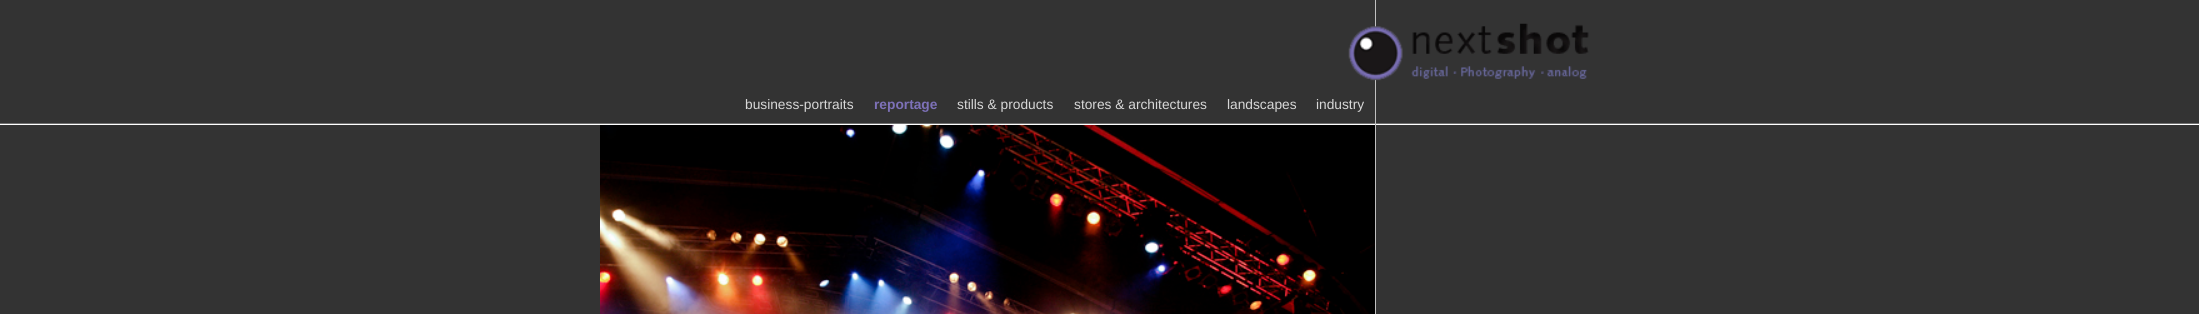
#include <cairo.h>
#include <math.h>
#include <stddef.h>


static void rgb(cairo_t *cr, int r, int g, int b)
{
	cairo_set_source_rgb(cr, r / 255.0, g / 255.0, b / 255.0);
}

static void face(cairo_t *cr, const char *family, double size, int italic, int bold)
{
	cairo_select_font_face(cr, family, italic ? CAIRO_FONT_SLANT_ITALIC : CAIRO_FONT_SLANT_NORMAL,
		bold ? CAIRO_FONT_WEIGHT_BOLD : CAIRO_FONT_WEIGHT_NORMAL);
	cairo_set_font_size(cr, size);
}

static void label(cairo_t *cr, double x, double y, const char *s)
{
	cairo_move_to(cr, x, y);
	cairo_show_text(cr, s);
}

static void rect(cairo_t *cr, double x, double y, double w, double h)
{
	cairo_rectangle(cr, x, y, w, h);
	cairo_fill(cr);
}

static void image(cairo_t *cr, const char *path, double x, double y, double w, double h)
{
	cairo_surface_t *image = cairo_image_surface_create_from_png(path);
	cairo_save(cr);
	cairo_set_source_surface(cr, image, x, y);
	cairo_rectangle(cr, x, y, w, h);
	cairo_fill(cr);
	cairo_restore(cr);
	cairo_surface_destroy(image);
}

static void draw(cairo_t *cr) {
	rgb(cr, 51, 51, 51);
	cairo_paint(cr);
	image(cr, "image0.png", 0, 123, 2199, 2);
	rgb(cr, 192, 192, 192);
	rect(cr, 1375, 0, 1, 314);
	image(cr, "image1.png", 1348, 23, 241, 58);
	face(cr, "Liberation Sans", 13.75, 0, 0);
	rgb(cr, 216, 216, 216);
	label(cr, 745, 109, "business-portraits");
	face(cr, "Liberation Sans", 13.75, 0, 1);
	rgb(cr, 125, 113, 184);
	label(cr, 874, 109, "reportage");
	face(cr, "Liberation Sans", 13.75, 0, 0);
	rgb(cr, 216, 216, 216);
	label(cr, 957, 109, "stills & products");
	label(cr, 1074, 109, "stores & architectures");
	label(cr, 1227, 109, "landscapes");
	label(cr, 1316, 109, "industry");
	image(cr, "image2.png", 600, 125, 775, 189);
}

int main(void) {
	cairo_surface_t *surface = cairo_image_surface_create(CAIRO_FORMAT_RGB24, 2199, 314);
	cairo_t *cr = cairo_create(surface);
	cairo_font_options_t *options = cairo_font_options_create();
	cairo_font_options_set_hint_metrics(options, CAIRO_HINT_METRICS_OFF);
	cairo_font_options_set_hint_style(options, CAIRO_HINT_STYLE_NONE);
	cairo_set_font_options(cr, options);
	cairo_set_miter_limit(cr, 4);
	draw(cr);
	cairo_surface_write_to_png(surface, "render.png");
	cairo_font_options_destroy(options);
	cairo_destroy(cr);
	cairo_surface_destroy(surface);
	return 0;
}
